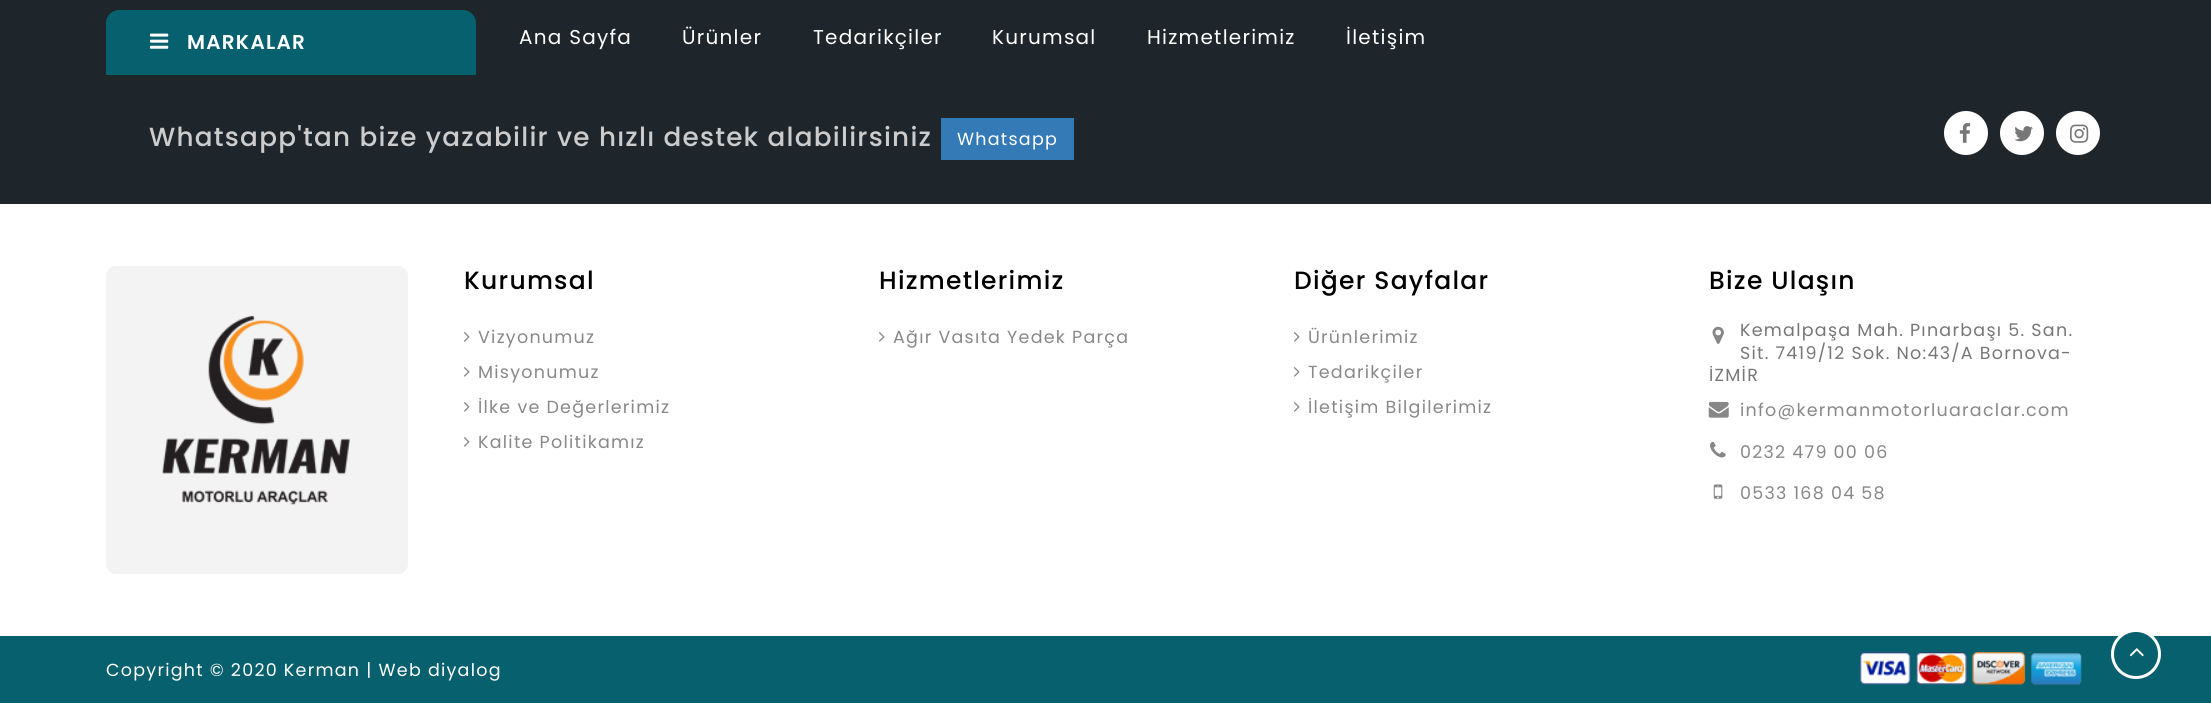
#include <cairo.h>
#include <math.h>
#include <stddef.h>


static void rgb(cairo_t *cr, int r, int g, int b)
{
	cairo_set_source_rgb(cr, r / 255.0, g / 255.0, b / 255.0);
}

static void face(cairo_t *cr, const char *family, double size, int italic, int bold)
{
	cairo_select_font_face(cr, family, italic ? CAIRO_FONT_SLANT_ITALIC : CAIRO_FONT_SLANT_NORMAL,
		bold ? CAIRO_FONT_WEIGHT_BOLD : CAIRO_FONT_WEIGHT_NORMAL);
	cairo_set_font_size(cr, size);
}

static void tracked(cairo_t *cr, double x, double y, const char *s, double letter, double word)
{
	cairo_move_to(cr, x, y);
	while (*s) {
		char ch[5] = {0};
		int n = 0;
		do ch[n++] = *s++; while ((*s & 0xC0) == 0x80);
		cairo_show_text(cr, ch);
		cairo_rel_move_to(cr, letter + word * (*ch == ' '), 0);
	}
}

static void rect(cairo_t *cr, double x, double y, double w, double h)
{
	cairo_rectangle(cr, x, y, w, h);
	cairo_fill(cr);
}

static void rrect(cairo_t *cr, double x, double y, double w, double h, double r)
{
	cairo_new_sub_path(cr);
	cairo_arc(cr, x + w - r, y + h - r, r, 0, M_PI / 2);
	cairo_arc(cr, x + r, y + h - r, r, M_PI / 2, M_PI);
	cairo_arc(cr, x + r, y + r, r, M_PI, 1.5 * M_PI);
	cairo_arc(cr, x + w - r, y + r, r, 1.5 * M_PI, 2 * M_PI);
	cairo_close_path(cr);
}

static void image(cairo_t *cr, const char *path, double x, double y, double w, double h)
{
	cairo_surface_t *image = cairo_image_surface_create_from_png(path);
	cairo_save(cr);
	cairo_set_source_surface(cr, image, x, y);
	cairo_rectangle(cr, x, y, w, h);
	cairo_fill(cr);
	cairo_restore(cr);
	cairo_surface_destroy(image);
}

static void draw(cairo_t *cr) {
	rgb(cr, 255, 255, 255);
	cairo_paint(cr);
	rgb(cr, 30, 38, 44);
	rect(cr, 0, 0, 2211, 204);
	rgb(cr, 6, 96, 109);
	cairo_new_path(cr);
	cairo_move_to(cr, 119, 10);
	cairo_line_to(cr, 463, 10);
	cairo_curve_to(cr, 470, 10, 476, 16, 476, 23);
	cairo_line_to(cr, 476, 75);
	cairo_line_to(cr, 106, 75);
	cairo_line_to(cr, 106, 23);
	cairo_curve_to(cr, 106, 16, 112, 10, 119, 10);
	cairo_close_path(cr);
	cairo_fill(cr);
	image(cr, "image0.png", 150, 33, 19, 16);
	face(cr, "Poppins SemiBold", 20, 0, 0);
	rgb(cr, 255, 255, 255);
	tracked(cr, 187, 49, "MARKALAR", 1.25, 0);
	face(cr, "Poppins", 20, 0, 0);
	tracked(cr, 519, 44, "Ana Sayfa", 1.25, 0);
	tracked(cr, 682, 44, "Ürünler", 1.25, 0);
	tracked(cr, 813, 44, "Tedarikçiler", 1.25, 0);
	tracked(cr, 992, 44, "Kurumsal", 1.25, 0);
	tracked(cr, 1147, 44, "Hizmetlerimiz", 1.25, 0);
	tracked(cr, 1346, 44, "İletişim", 1.25, 0);
	face(cr, "Poppins Medium", 26.25, 0, 0);
	rgb(cr, 204, 204, 204);
	tracked(cr, 149, 146, "Whatsapp'tan bize yazabilir ve hızlı destek alabilirsiniz", 1.25, 0);
	rgb(cr, 51, 122, 183);
	rect(cr, 941, 118, 133, 42);
	face(cr, "Poppins", 17.5, 0, 0);
	rgb(cr, 255, 255, 255);
	tracked(cr, 957, 145, "Whatsapp", 1.25, 0);
	cairo_new_path(cr);
	cairo_arc(cr, 1966, 133, 22, 0, 2 * M_PI);
	cairo_fill(cr);
	image(cr, "image1.png", 1959, 123, 12, 20);
	cairo_arc(cr, 2022, 133, 22, 0, 2 * M_PI);
	cairo_fill(cr);
	image(cr, "image2.png", 2014, 126, 19, 16);
	cairo_arc(cr, 2078, 133, 22, 0, 2 * M_PI);
	cairo_fill(cr);
	image(cr, "image3.png", 2070, 124, 19, 19);
	rgb(cr, 243, 243, 243);
	rrect(cr, 106, 266, 302, 308, 10);
	cairo_fill(cr);
	image(cr, "image4.png", 162, 315, 188, 190);
	face(cr, "Poppins Medium", 25, 0, 0);
	rgb(cr, 0, 0, 0);
	tracked(cr, 464, 289, "Kurumsal", 1.25, 0);
	image(cr, "image5.png", 464, 332, 6, 10);
	face(cr, "Poppins", 17.5, 0, 0);
	rgb(cr, 136, 136, 136);
	tracked(cr, 478, 343, "Vizyonumuz", 1.25, 0);
	image(cr, "image5.png", 464, 367, 6, 10);
	tracked(cr, 478, 378, "Misyonumuz", 1.25, 0);
	image(cr, "image5.png", 464, 402, 6, 10);
	tracked(cr, 478, 413, "İlke ve Değerlerimiz", 1.25, 0);
	image(cr, "image5.png", 464, 437, 6, 10);
	tracked(cr, 478, 448, "Kalite Politikamız", 1.25, 0);
	face(cr, "Poppins Medium", 25, 0, 0);
	rgb(cr, 0, 0, 0);
	tracked(cr, 879, 289, "Hizmetlerimiz", 1.25, 0);
	image(cr, "image5.png", 879, 332, 6, 10);
	face(cr, "Poppins", 17.5, 0, 0);
	rgb(cr, 136, 136, 136);
	tracked(cr, 893, 343, "Ağır Vasıta Yedek Parça", 1.25, 0);
	face(cr, "Poppins Medium", 25, 0, 0);
	rgb(cr, 0, 0, 0);
	tracked(cr, 1294, 289, "Diğer Sayfalar", 1.25, 0);
	image(cr, "image5.png", 1294, 332, 6, 10);
	face(cr, "Poppins", 17.5, 0, 0);
	rgb(cr, 136, 136, 136);
	tracked(cr, 1308, 343, "Ürünlerimiz", 1.25, 0);
	image(cr, "image5.png", 1294, 367, 6, 10);
	tracked(cr, 1308, 378, "Tedarikçiler", 1.25, 0);
	image(cr, "image5.png", 1294, 402, 6, 10);
	tracked(cr, 1308, 413, "İletişim Bilgilerimiz", 1.25, 0);
	face(cr, "Poppins Medium", 25, 0, 0);
	rgb(cr, 0, 0, 0);
	tracked(cr, 1709, 289, "Bize Ulaşın", 1.25, 0);
	image(cr, "image6.png", 1712, 326, 12, 18);
	face(cr, "Poppins", 17.5, 0, 0);
	rgb(cr, 119, 119, 119);
	tracked(cr, 1740, 336, "Kemalpaşa Mah. Pınarbaşı 5. San.", 1.25, 0);
	tracked(cr, 1740, 359, "Sit. 7419/12 Sok. No:43/A Bornova-", 1.25, 0);
	tracked(cr, 1709, 381, "İZMİR", 1.25, 0);
	image(cr, "image7.png", 1708, 401, 21, 17);
	rgb(cr, 136, 136, 136);
	tracked(cr, 1740, 416, "info@kermanmotorluaraclar.com", 1.25, 0);
	image(cr, "image8.png", 1710, 441, 16, 17);
	tracked(cr, 1740, 458, "0232 479 00 06", 1.25, 0);
	image(cr, "image9.png", 1713, 484, 10, 15);
	tracked(cr, 1740, 499, "0533 168 04 58", 1.25, 0);
	rgb(cr, 6, 96, 109);
	rect(cr, 0, 636, 2211, 67);
	rgb(cr, 255, 255, 255);
	tracked(cr, 106, 676, "Copyright © 2020 Kerman | Web diyalog", 1.25, 0);
	image(cr, "image10.png", 1860, 652, 222, 33);
	rgb(cr, 6, 96, 109);
	cairo_arc(cr, 2136, 654, 23.5, 0, 2 * M_PI);
	cairo_fill_preserve(cr);
	rgb(cr, 255, 255, 255);
	cairo_set_line_width(cr, 3);
	cairo_stroke(cr);
	image(cr, "image11.png", 2129, 648, 15, 9);
}

int main(void) {
	cairo_surface_t *surface = cairo_image_surface_create(CAIRO_FORMAT_RGB24, 2211, 703);
	cairo_t *cr = cairo_create(surface);
	cairo_font_options_t *options = cairo_font_options_create();
	cairo_font_options_set_hint_metrics(options, CAIRO_HINT_METRICS_OFF);
	cairo_font_options_set_hint_style(options, CAIRO_HINT_STYLE_NONE);
	cairo_set_font_options(cr, options);
	cairo_set_miter_limit(cr, 4);
	draw(cr);
	cairo_surface_write_to_png(surface, "render.png");
	cairo_font_options_destroy(options);
	cairo_destroy(cr);
	cairo_surface_destroy(surface);
	return 0;
}
